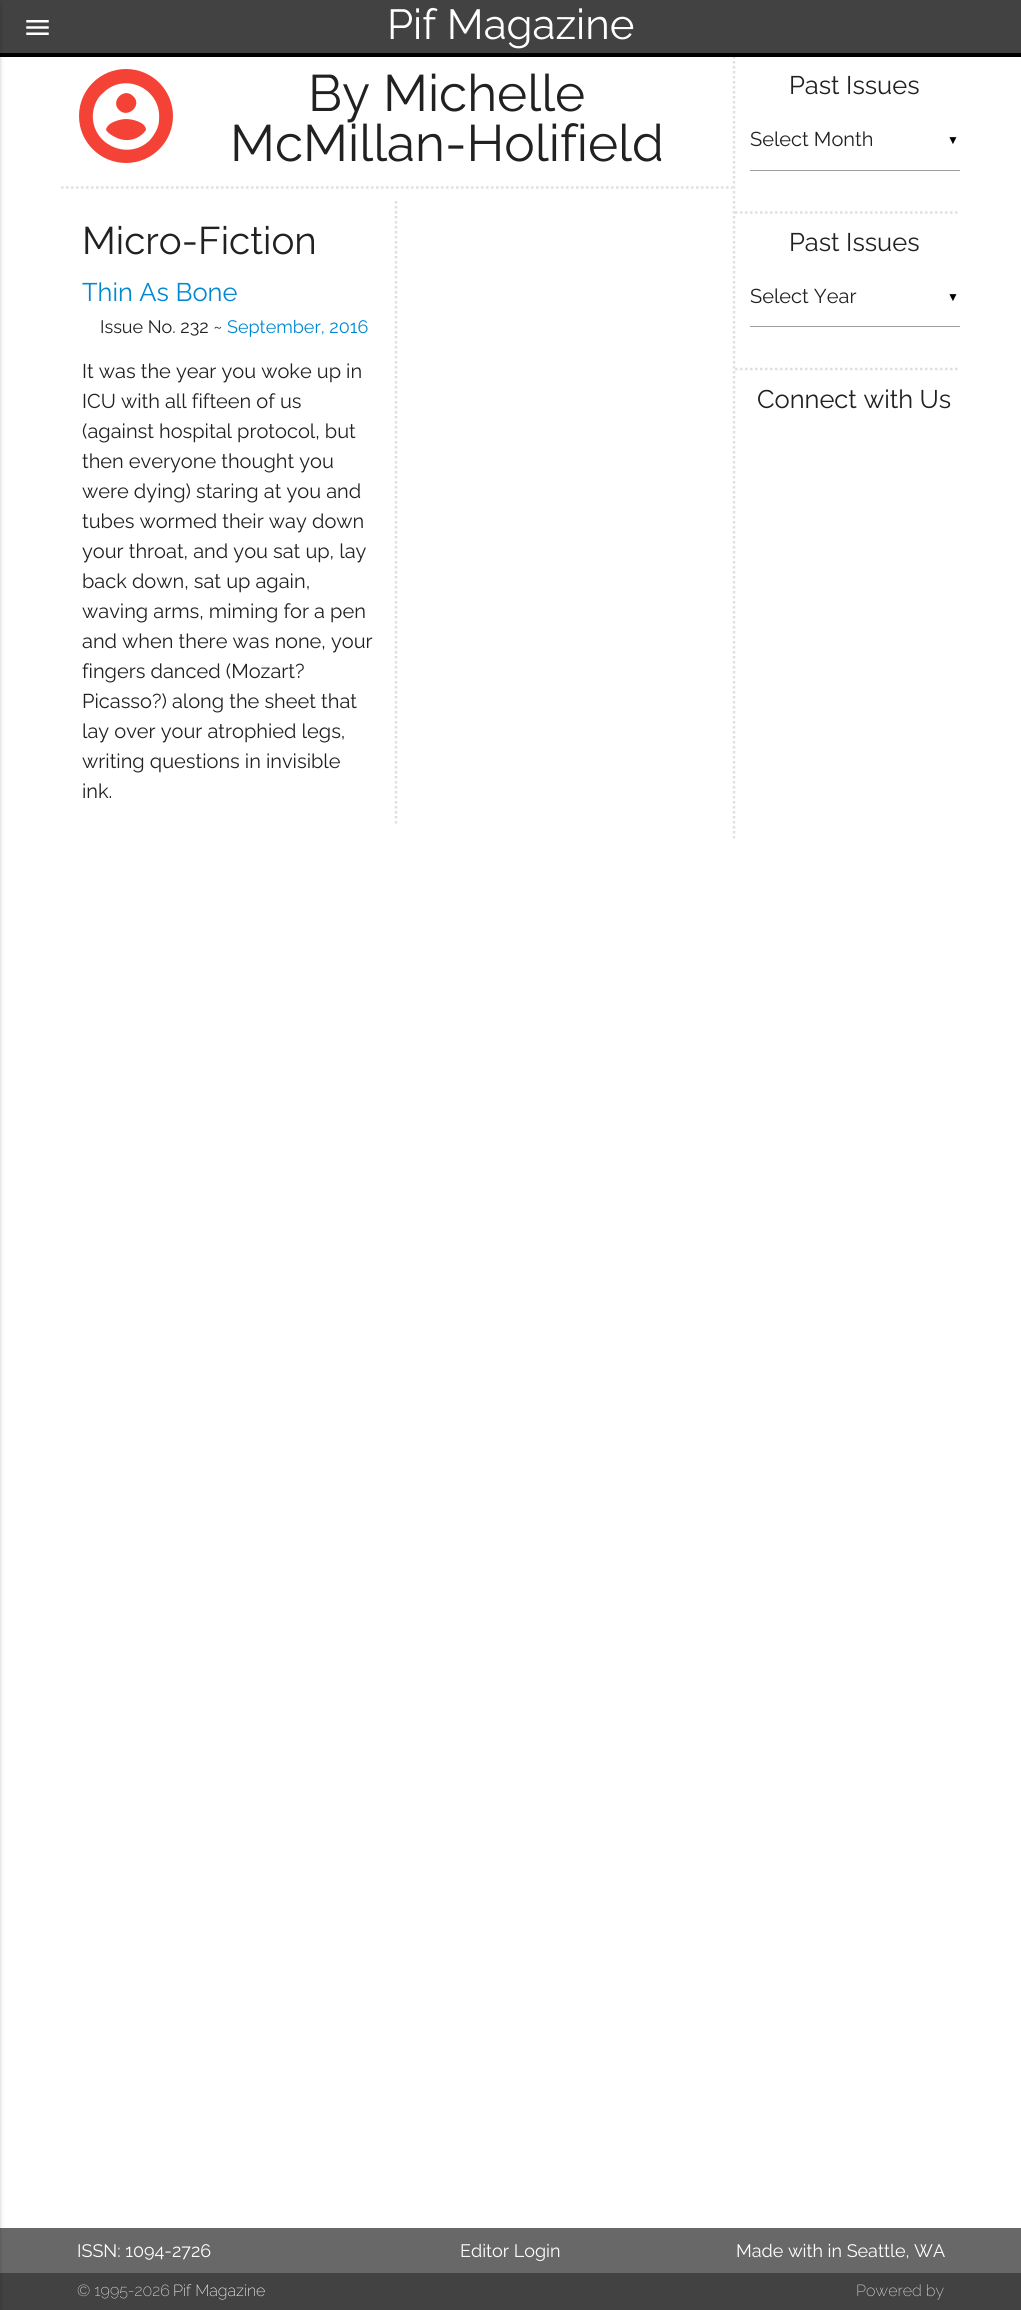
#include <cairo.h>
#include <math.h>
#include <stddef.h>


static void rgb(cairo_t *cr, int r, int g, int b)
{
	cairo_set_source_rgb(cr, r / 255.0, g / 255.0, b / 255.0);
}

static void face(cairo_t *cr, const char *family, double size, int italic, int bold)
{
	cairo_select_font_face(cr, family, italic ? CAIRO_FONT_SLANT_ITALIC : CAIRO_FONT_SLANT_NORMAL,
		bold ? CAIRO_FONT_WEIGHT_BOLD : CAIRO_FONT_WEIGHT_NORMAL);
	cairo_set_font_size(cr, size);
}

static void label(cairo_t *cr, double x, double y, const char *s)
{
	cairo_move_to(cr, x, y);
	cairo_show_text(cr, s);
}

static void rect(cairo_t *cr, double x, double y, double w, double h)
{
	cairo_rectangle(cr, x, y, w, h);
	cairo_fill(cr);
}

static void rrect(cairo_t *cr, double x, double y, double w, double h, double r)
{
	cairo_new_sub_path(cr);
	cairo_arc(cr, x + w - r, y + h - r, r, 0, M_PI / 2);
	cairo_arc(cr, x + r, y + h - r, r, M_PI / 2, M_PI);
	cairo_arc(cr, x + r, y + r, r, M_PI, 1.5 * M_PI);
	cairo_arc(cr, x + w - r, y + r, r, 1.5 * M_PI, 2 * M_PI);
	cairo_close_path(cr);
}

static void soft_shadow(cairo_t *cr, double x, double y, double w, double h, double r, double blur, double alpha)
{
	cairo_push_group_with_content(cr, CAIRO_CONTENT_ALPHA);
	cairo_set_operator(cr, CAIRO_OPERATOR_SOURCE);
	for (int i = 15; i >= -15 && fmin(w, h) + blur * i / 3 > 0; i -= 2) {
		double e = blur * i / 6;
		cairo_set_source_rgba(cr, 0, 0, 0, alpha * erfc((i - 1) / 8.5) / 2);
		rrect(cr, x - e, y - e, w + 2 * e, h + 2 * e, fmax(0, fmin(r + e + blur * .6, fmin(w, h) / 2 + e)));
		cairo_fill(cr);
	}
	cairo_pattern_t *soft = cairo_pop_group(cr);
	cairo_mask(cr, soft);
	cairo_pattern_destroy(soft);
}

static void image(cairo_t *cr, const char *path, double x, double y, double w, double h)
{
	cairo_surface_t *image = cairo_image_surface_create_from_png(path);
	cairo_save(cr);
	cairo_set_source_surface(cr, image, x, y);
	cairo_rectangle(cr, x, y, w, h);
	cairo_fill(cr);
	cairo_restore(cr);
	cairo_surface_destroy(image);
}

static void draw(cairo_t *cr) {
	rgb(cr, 255, 255, 255);
	cairo_paint(cr);
	rgb(cr, 66, 66, 66);
	rect(cr, 0, 0, 1021, 53);
	cairo_new_path(cr);
	cairo_move_to(cr, 734, 56);
	cairo_line_to(cr, 734, 839);
	rgb(cr, 224, 224, 224);
	cairo_set_line_width(cr, 2.5);
	cairo_set_dash(cr, (double[]){2.5, 2.5}, 2, 0);
	cairo_stroke(cr);
	rgb(cr, 0, 0, 0);
	rect(cr, 0, 53, 1021, 4);
	rgb(cr, 104, 104, 104);
	rect(cr, 0, 2228, 1021, 45);
	rgb(cr, 66, 66, 66);
	rect(cr, 0, 2273, 1021, 37);
	rgb(cr, 0, 0, 0);
	soft_shadow(cr, -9, 1, 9, 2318, 0, 3, 0.12);
	soft_shadow(cr, -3, 3, 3, 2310, 0, 1, 0.14);
	image(cr, "image0.png", 26, 20, 23, 15);
	face(cr, "Raleway", 42, 0, 0);
	rgb(cr, 255, 255, 255);
	label(cr, 387, 39, "Pif Magazine");
	cairo_new_path(cr);
	cairo_move_to(cr, 61, 187.5);
	cairo_line_to(cr, 732.5, 187.5);
	rgb(cr, 224, 224, 224);
	cairo_stroke(cr);
	rgb(cr, 244, 67, 54);
	cairo_arc(cr, 126, 116, 47, 0, 2 * M_PI);
	cairo_fill(cr);
	rgb(cr, 255, 255, 255);
	cairo_new_path(cr);
	cairo_move_to(cr, 115, 137);
	cairo_curve_to(cr, 126, 143, 139, 140, 146, 130);
	cairo_curve_to(cr, 146, 122, 132, 119, 126, 119);
	cairo_curve_to(cr, 121, 119, 107, 122, 106, 130);
	cairo_curve_to(cr, 108, 133, 111, 135, 115, 137);
	cairo_close_path(cr);
	cairo_move_to(cr, 133, 96);
	cairo_curve_to(cr, 124, 87, 110, 101, 119, 110);
	cairo_curve_to(cr, 128, 119, 143, 105, 133, 96);
	cairo_close_path(cr);
	cairo_move_to(cr, 103, 93);
	cairo_curve_to(cr, 125, 71, 162, 89, 159, 120);
	cairo_curve_to(cr, 159, 127, 155, 134, 150, 140);
	cairo_curve_to(cr, 128, 162, 90, 144, 93, 113);
	cairo_curve_to(cr, 94, 105, 97, 98, 103, 93);
	cairo_close_path(cr);
	cairo_fill(cr);
	face(cr, "Raleway", 51.25, 0, 0);
	rgb(cr, 33, 33, 33);
	label(cr, 308, 111, "By Michelle");
	label(cr, 230, 161, "McMillan-Holifield");
	cairo_new_path(cr);
	cairo_move_to(cr, 396, 201);
	cairo_line_to(cr, 396, 826);
	rgb(cr, 224, 224, 224);
	cairo_stroke(cr);
	face(cr, "Raleway", 38.5, 0, 0);
	rgb(cr, 33, 33, 33);
	label(cr, 82, 254, "Micro-Fiction");
	face(cr, "Raleway", 25.5, 0, 0);
	rgb(cr, 2, 136, 209);
	label(cr, 82, 301, "Thin As Bone");
	face(cr, "Raleway", 18, 0, 0);
	rgb(cr, 33, 33, 33);
	label(cr, 100, 333, "Issue No. 232 ~");
	rgb(cr, 2, 136, 209);
	label(cr, 227, 333, "September, 2016");
	face(cr, "Raleway", 20, 0, 0);
	rgb(cr, 33, 33, 33);
	label(cr, 82, 378, "It was the year you woke up in");
	label(cr, 82, 408, "ICU with all fifteen of us");
	label(cr, 82, 438, "(against hospital protocol, but");
	label(cr, 82, 468, "then everyone thought you");
	label(cr, 82, 498, "were dying) staring at you and");
	label(cr, 82, 528, "tubes wormed their way down");
	label(cr, 82, 558, "your throat, and you sat up, lay");
	label(cr, 82, 588, "back down, sat up again,");
	label(cr, 82, 618, "waving arms, miming for a pen");
	label(cr, 82, 648, "and when there was none, your");
	label(cr, 82, 678, "fingers danced (Mozart?");
	label(cr, 82, 708, "Picasso?) along the sheet that");
	label(cr, 82, 738, "lay over your atrophied legs,");
	label(cr, 82, 768, "writing questions in invisible");
	label(cr, 82, 798, "ink.");
	face(cr, "Raleway", 25.5, 0, 0);
	label(cr, 789, 94, "Past Issues");
	rgb(cr, 158, 158, 158);
	rect(cr, 750, 170, 210, 1);
	face(cr, "Raleway", 20, 0, 0);
	rgb(cr, 33, 33, 33);
	label(cr, 750, 146, "Select Month");
	face(cr, "Liberation Sans", 12, 0, 0);
	rgb(cr, 0, 0, 0);
	label(cr, 947, 144, "▼");
	cairo_new_path(cr);
	cairo_move_to(cr, 735, 212.5);
	cairo_line_to(cr, 960, 212.5);
	rgb(cr, 224, 224, 224);
	cairo_stroke(cr);
	face(cr, "Raleway", 25.5, 0, 0);
	rgb(cr, 33, 33, 33);
	label(cr, 789, 251, "Past Issues");
	rgb(cr, 158, 158, 158);
	rect(cr, 750, 326, 210, 1);
	face(cr, "Raleway", 20, 0, 0);
	rgb(cr, 33, 33, 33);
	label(cr, 750, 303, "Select Year");
	face(cr, "Liberation Sans", 12, 0, 0);
	rgb(cr, 0, 0, 0);
	label(cr, 947, 301, "▼");
	cairo_new_path(cr);
	cairo_move_to(cr, 735, 369);
	cairo_line_to(cr, 960, 369);
	rgb(cr, 224, 224, 224);
	cairo_stroke(cr);
	face(cr, "Raleway", 25.5, 0, 0);
	rgb(cr, 33, 33, 33);
	label(cr, 757, 408, "Connect with Us");
	face(cr, "Raleway", 18, 0, 0);
	rgb(cr, 255, 255, 255);
	label(cr, 77, 2257, "ISSN: 1094-2726");
	label(cr, 460, 2257, "Editor Login");
	label(cr, 736, 2257, "Made with in Seattle, WA");
	face(cr, "Raleway ExtraLight", 16, 0, 0);
	rgb(cr, 217, 217, 217);
	label(cr, 77, 2296, "© 1995-2026");
	rgb(cr, 255, 255, 255);
	label(cr, 173, 2296, "Pif Magazine");
	rgb(cr, 217, 217, 217);
	label(cr, 856, 2296, "Powered by");
}

int main(void) {
	cairo_surface_t *surface = cairo_image_surface_create(CAIRO_FORMAT_RGB24, 1021, 2310);
	cairo_t *cr = cairo_create(surface);
	cairo_font_options_t *options = cairo_font_options_create();
	cairo_font_options_set_hint_metrics(options, CAIRO_HINT_METRICS_OFF);
	cairo_font_options_set_hint_style(options, CAIRO_HINT_STYLE_NONE);
	cairo_set_font_options(cr, options);
	cairo_set_miter_limit(cr, 4);
	draw(cr);
	cairo_surface_write_to_png(surface, "render.png");
	cairo_font_options_destroy(options);
	cairo_destroy(cr);
	cairo_surface_destroy(surface);
	return 0;
}
